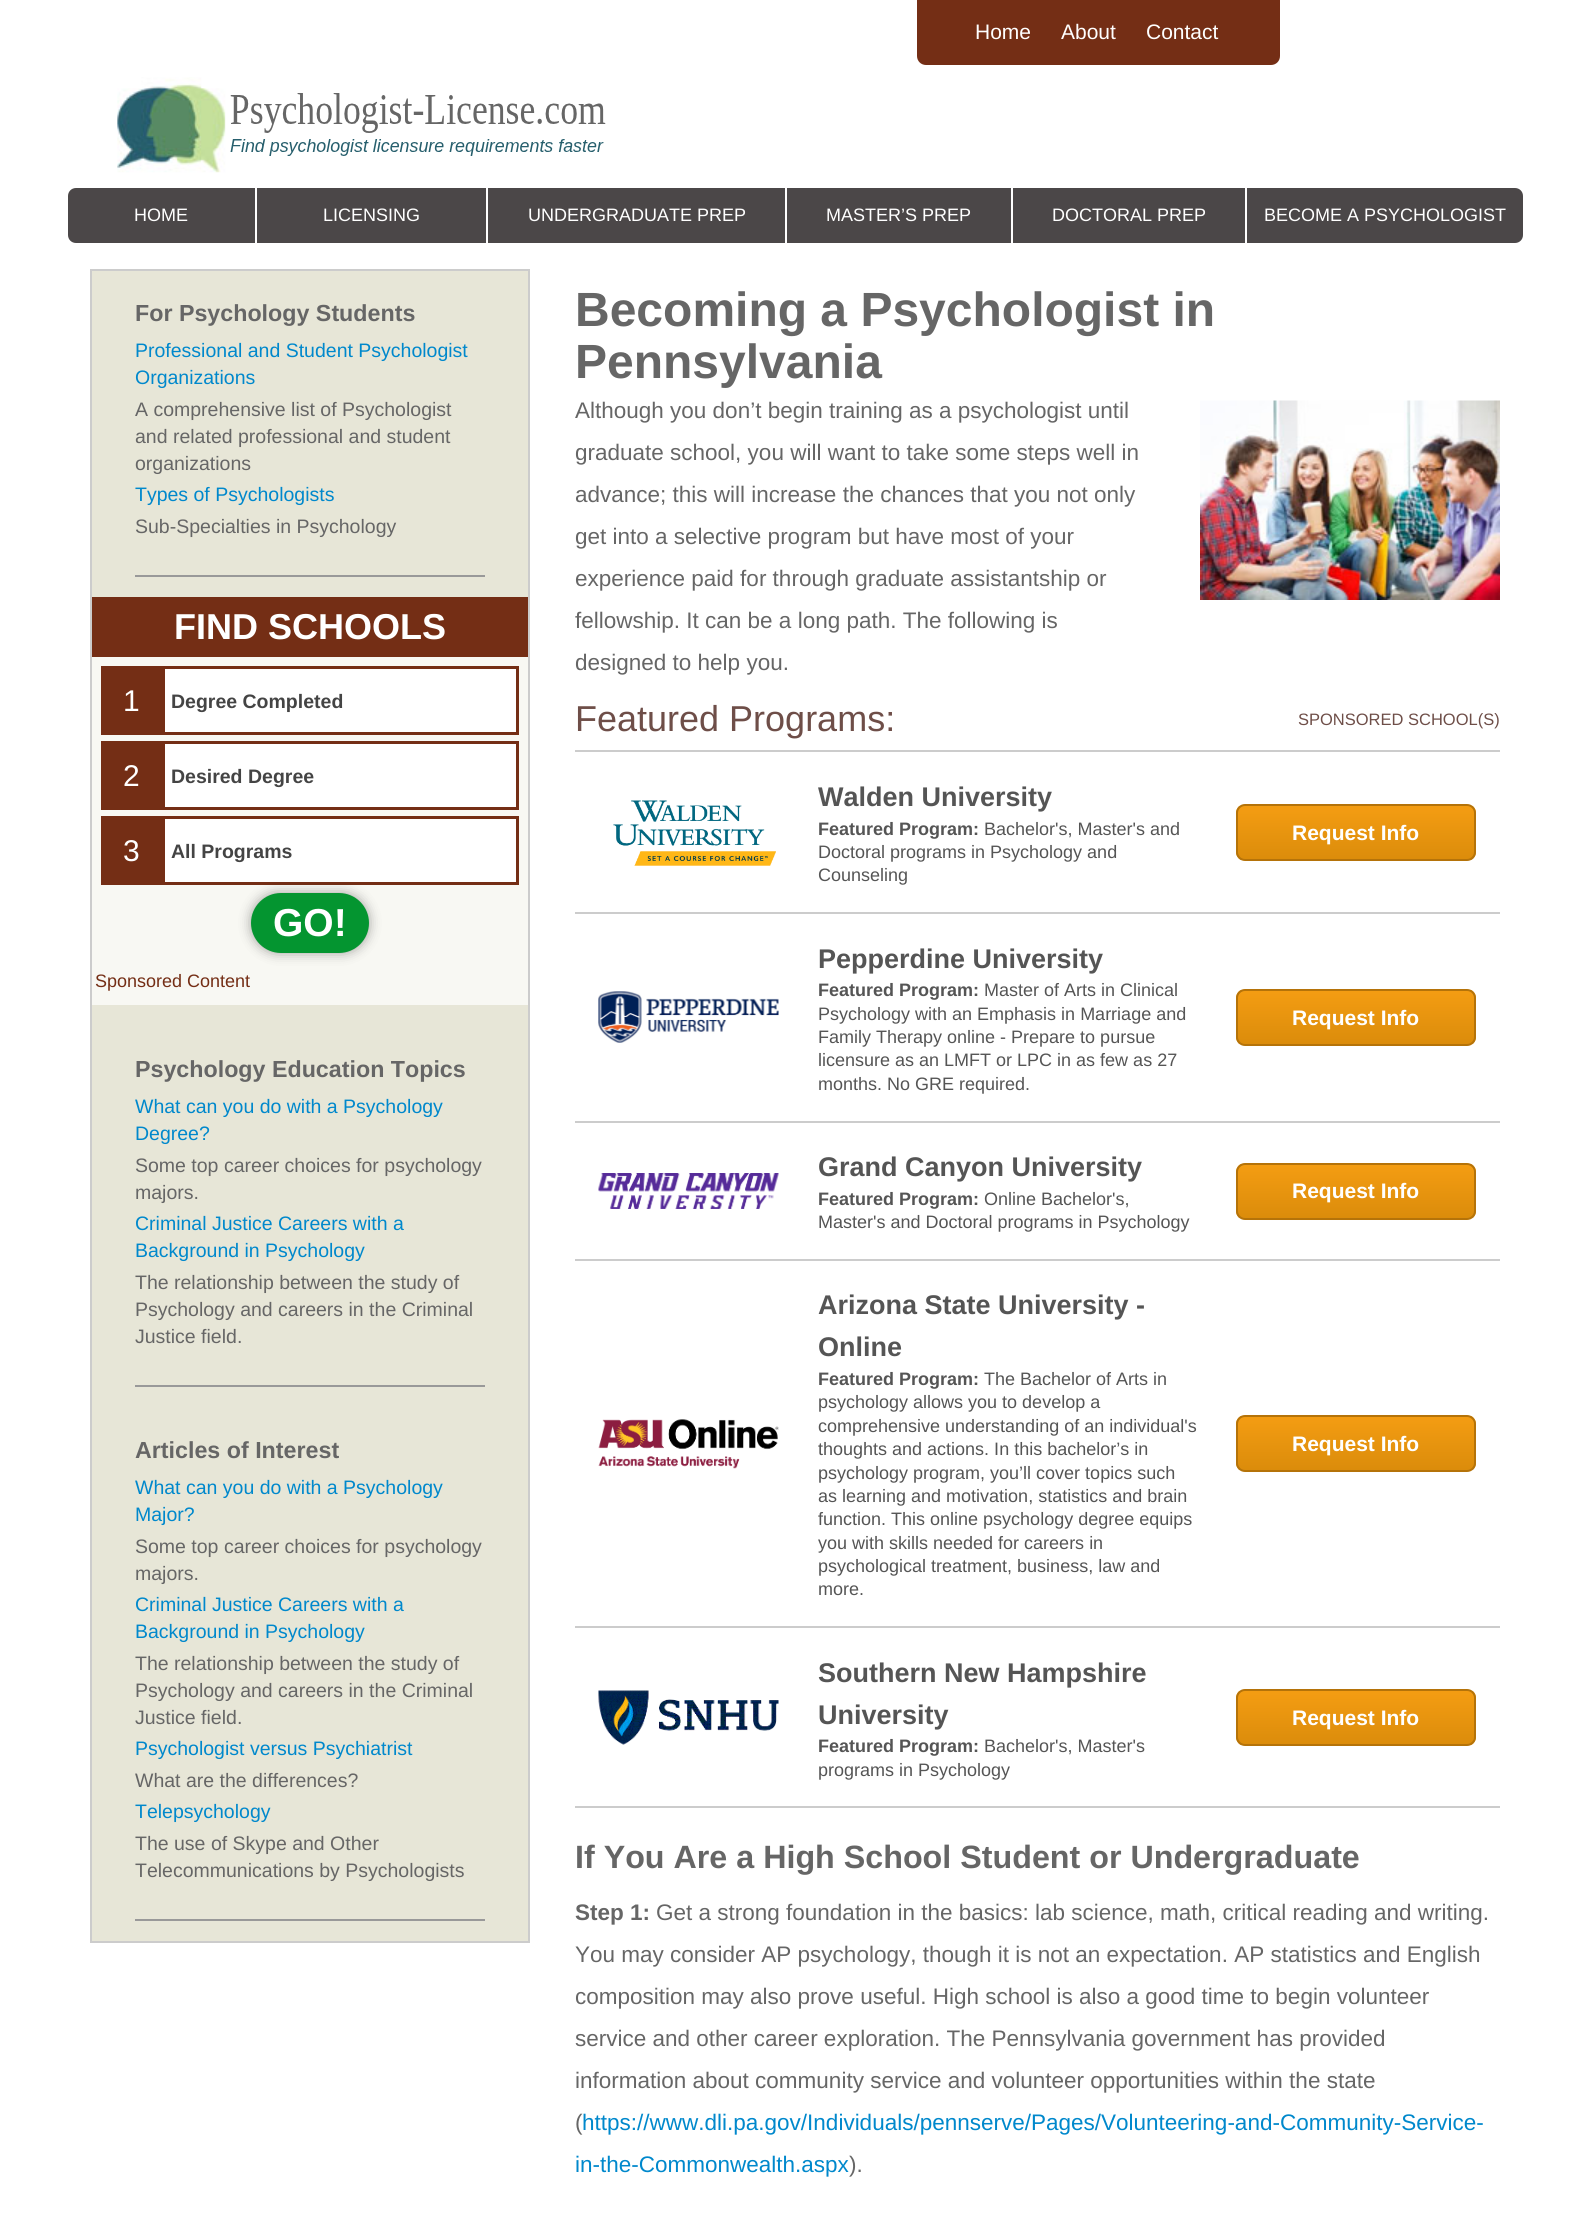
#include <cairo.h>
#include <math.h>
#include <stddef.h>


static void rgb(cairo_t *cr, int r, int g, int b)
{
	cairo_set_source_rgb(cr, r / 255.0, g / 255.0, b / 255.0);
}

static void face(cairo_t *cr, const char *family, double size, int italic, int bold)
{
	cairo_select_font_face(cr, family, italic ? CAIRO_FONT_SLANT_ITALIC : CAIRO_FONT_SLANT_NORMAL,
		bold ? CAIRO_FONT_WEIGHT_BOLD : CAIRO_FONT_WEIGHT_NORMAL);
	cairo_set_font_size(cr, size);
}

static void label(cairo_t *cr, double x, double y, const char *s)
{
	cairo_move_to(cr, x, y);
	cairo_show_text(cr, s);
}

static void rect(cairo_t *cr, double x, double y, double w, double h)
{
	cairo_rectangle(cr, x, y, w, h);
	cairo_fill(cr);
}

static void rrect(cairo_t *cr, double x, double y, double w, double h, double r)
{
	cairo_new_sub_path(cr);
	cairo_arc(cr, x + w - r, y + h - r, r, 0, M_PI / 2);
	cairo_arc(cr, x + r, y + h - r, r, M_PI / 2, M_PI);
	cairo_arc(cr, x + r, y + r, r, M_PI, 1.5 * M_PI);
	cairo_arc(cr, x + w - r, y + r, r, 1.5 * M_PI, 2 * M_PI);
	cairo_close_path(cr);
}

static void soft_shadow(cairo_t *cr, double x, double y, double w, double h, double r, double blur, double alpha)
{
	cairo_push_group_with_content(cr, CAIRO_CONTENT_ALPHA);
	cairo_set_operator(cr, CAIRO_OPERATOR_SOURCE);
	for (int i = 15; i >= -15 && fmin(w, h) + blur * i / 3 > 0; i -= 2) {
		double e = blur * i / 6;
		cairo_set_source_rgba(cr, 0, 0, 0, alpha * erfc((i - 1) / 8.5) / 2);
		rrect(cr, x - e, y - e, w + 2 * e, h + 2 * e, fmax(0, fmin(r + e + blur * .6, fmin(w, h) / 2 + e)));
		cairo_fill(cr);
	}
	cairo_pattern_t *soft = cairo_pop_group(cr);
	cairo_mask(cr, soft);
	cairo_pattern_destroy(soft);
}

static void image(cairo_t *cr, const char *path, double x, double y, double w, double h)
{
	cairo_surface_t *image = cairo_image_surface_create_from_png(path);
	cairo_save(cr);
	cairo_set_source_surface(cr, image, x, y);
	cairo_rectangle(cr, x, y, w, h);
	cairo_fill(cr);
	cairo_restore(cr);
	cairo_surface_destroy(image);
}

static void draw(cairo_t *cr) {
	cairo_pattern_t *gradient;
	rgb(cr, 255, 255, 255);
	cairo_paint(cr);
	rgb(cr, 116, 46, 21);
	cairo_new_path(cr);
	cairo_move_to(cr, 918, 0);
	cairo_line_to(cr, 1279, 0);
	cairo_line_to(cr, 1279, 56);
	cairo_curve_to(cr, 1279, 60.5, 1275.5, 64, 1271, 64);
	cairo_line_to(cr, 926, 64);
	cairo_curve_to(cr, 921.5, 64, 918, 60.5, 918, 56);
	cairo_close_path(cr);
	cairo_fill_preserve(cr);
	cairo_stroke(cr);
	face(cr, "Liberation Sans", 21, 0, 0);
	rgb(cr, 255, 255, 255);
	label(cr, 975, 39, "Home");
	label(cr, 1061, 39, "About");
	label(cr, 1146, 39, "Contact");
	image(cr, "image0.png", 117, 77, 489, 96);
	rgb(cr, 75, 71, 72);
	cairo_new_path(cr);
	cairo_move_to(cr, 76, 188);
	cairo_line_to(cr, 255, 188);
	cairo_line_to(cr, 255, 243);
	cairo_line_to(cr, 76, 243);
	cairo_curve_to(cr, 71.5, 243, 68, 239.5, 68, 235);
	cairo_line_to(cr, 68, 196);
	cairo_curve_to(cr, 68, 191.5, 71.5, 188, 76, 188);
	cairo_close_path(cr);
	cairo_fill(cr);
	face(cr, "Liberation Sans", 18, 0, 0);
	rgb(cr, 255, 255, 255);
	label(cr, 134, 221, "HOME");
	rgb(cr, 75, 71, 72);
	rect(cr, 257, 188, 229, 55);
	rgb(cr, 255, 255, 255);
	label(cr, 323, 221, "LICENSING");
	rgb(cr, 75, 71, 72);
	rect(cr, 488, 188, 297, 55);
	rgb(cr, 255, 255, 255);
	label(cr, 528, 221, "UNDERGRADUATE PREP");
	rgb(cr, 75, 71, 72);
	rect(cr, 787, 188, 224, 55);
	rgb(cr, 255, 255, 255);
	label(cr, 826, 221, "MASTER’S PREP");
	rgb(cr, 75, 71, 72);
	rect(cr, 1013, 188, 232, 55);
	rgb(cr, 255, 255, 255);
	label(cr, 1052, 221, "DOCTORAL PREP");
	rgb(cr, 75, 71, 72);
	cairo_new_path(cr);
	cairo_move_to(cr, 1245, 188);
	cairo_line_to(cr, 1515, 188);
	cairo_curve_to(cr, 1519.5, 188, 1523, 191.5, 1523, 196);
	cairo_line_to(cr, 1523, 235);
	cairo_curve_to(cr, 1523, 239.5, 1519.5, 243, 1515, 243);
	cairo_line_to(cr, 1245, 243);
	cairo_close_path(cr);
	cairo_fill(cr);
	rgb(cr, 255, 255, 255);
	rect(cr, 1245, 188, 2, 55);
	label(cr, 1264, 221, "BECOME A PSYCHOLOGIST");
	rgb(cr, 231, 230, 215);
	cairo_rectangle(cr, 91, 270, 438, 1672);
	cairo_fill_preserve(cr);
	rgb(cr, 204, 204, 204);
	cairo_stroke(cr);
	rgb(cr, 153, 153, 153);
	rect(cr, 135, 575, 350, 2);
	face(cr, "Liberation Sans", 23.25, 0, 1);
	rgb(cr, 102, 102, 102);
	label(cr, 135, 321, "For Psychology Students");
	face(cr, "Liberation Sans", 19.5, 0, 0);
	rgb(cr, 0, 136, 204);
	label(cr, 135, 357, "Professional and Student Psychologist");
	label(cr, 135, 384, "Organizations");
	rgb(cr, 102, 102, 102);
	label(cr, 135, 416, "A comprehensive list of Psychologist");
	label(cr, 135, 443, "and related professional and student");
	label(cr, 135, 470, "organizations");
	rgb(cr, 0, 136, 204);
	label(cr, 135, 501, "Types of Psychologists");
	rgb(cr, 102, 102, 102);
	label(cr, 135, 533, "Sub-Specialties in Psychology");
	rgb(cr, 248, 248, 243);
	rect(cr, 92, 657, 436, 348);
	rgb(cr, 116, 46, 21);
	rect(cr, 92, 597, 436, 60);
	face(cr, "Liberation Sans", 36, 0, 1);
	rgb(cr, 255, 255, 255);
	label(cr, 174, 639, "FIND SCHOOLS");
	rgb(cr, 116, 46, 21);
	rect(cr, 101, 666, 61, 69);
	face(cr, "Liberation Sans", 30, 0, 0);
	rgb(cr, 255, 255, 255);
	label(cr, 123, 711, "1");
	cairo_rectangle(cr, 163.5, 667.5, 354, 66);
	cairo_fill_preserve(cr);
	rgb(cr, 116, 46, 21);
	cairo_set_line_width(cr, 3);
	cairo_stroke(cr);
	face(cr, "Liberation Sans", 19.5, 0, 1);
	rgb(cr, 68, 68, 68);
	label(cr, 171, 708, "Degree Completed");
	rgb(cr, 116, 46, 21);
	rect(cr, 101, 741, 61, 69);
	face(cr, "Liberation Sans", 30, 0, 0);
	rgb(cr, 255, 255, 255);
	label(cr, 123, 786, "2");
	cairo_rectangle(cr, 163.5, 742.5, 354, 66);
	cairo_fill_preserve(cr);
	rgb(cr, 116, 46, 21);
	cairo_stroke(cr);
	face(cr, "Liberation Sans", 19.5, 0, 1);
	rgb(cr, 68, 68, 68);
	label(cr, 171, 783, "Desired Degree");
	rgb(cr, 116, 46, 21);
	rect(cr, 101, 816, 61, 69);
	face(cr, "Liberation Sans", 30, 0, 0);
	rgb(cr, 255, 255, 255);
	label(cr, 123, 861, "3");
	cairo_rectangle(cr, 163.5, 817.5, 354, 66);
	cairo_fill_preserve(cr);
	rgb(cr, 116, 46, 21);
	cairo_stroke(cr);
	face(cr, "Liberation Sans", 19.5, 0, 1);
	rgb(cr, 68, 68, 68);
	label(cr, 171, 858, "All Programs");
	rgb(cr, 0, 0, 0);
	soft_shadow(cr, 251, 893, 118, 60, 30, 6, 0.35);
	rgb(cr, 4, 149, 48);
	rrect(cr, 251, 893, 118, 60, 30);
	cairo_fill(cr);
	face(cr, "Liberation Sans", 39, 0, 1);
	rgb(cr, 255, 255, 255);
	label(cr, 273, 936, "GO!");
	face(cr, "Liberation Sans", 18, 0, 0);
	rgb(cr, 116, 46, 21);
	label(cr, 95, 987, "Sponsored Content");
	rgb(cr, 153, 153, 153);
	rect(cr, 135, 1385, 350, 2);
	face(cr, "Liberation Sans", 23.25, 0, 1);
	rgb(cr, 102, 102, 102);
	label(cr, 135, 1077, "Psychology Education Topics");
	face(cr, "Liberation Sans", 19.5, 0, 0);
	rgb(cr, 0, 136, 204);
	label(cr, 135, 1113, "What can you do with a Psychology");
	label(cr, 135, 1140, "Degree?");
	rgb(cr, 102, 102, 102);
	label(cr, 135, 1172, "Some top career choices for psychology");
	label(cr, 135, 1199, "majors.");
	rgb(cr, 0, 136, 204);
	label(cr, 135, 1230, "Criminal Justice Careers with a");
	label(cr, 135, 1257, "Background in Psychology");
	rgb(cr, 102, 102, 102);
	label(cr, 135, 1289, "The relationship between the study of");
	label(cr, 135, 1316, "Psychology and careers in the Criminal");
	label(cr, 135, 1343, "Justice field.");
	rgb(cr, 153, 153, 153);
	rect(cr, 135, 1919, 350, 2);
	face(cr, "Liberation Sans", 23.25, 0, 1);
	rgb(cr, 102, 102, 102);
	label(cr, 135, 1458, "Articles of Interest");
	face(cr, "Liberation Sans", 19.5, 0, 0);
	rgb(cr, 0, 136, 204);
	label(cr, 135, 1494, "What can you do with a Psychology");
	label(cr, 135, 1521, "Major?");
	rgb(cr, 102, 102, 102);
	label(cr, 135, 1553, "Some top career choices for psychology");
	label(cr, 135, 1580, "majors.");
	rgb(cr, 0, 136, 204);
	label(cr, 135, 1611, "Criminal Justice Careers with a");
	label(cr, 135, 1638, "Background in Psychology");
	rgb(cr, 102, 102, 102);
	label(cr, 135, 1670, "The relationship between the study of");
	label(cr, 135, 1697, "Psychology and careers in the Criminal");
	label(cr, 135, 1724, "Justice field.");
	rgb(cr, 0, 136, 204);
	label(cr, 135, 1755, "Psychologist versus Psychiatrist");
	rgb(cr, 102, 102, 102);
	label(cr, 135, 1787, "What are the differences?");
	rgb(cr, 0, 136, 204);
	label(cr, 135, 1818, "Telepsychology");
	rgb(cr, 102, 102, 102);
	label(cr, 135, 1850, "The use of Skype and Other");
	label(cr, 135, 1877, "Telecommunications by Psychologists");
	face(cr, "Liberation Sans", 48, 0, 1);
	label(cr, 575, 326, "Becoming a Psychologist in");
	label(cr, 575, 378, "Pennsylvania");
	face(cr, "Liberation Sans", 22.5, 0, 0);
	label(cr, 575, 418, "Although you don’t begin training as a psychologist until");
	label(cr, 575, 460, "graduate school, you will want to take some steps well in");
	label(cr, 575, 502, "advance; this will increase the chances that you not only");
	label(cr, 575, 544, "get into a selective program but have most of your");
	label(cr, 575, 586, "experience paid for through graduate assistantship or");
	label(cr, 575, 628, "fellowship. It can be a long path. The following is");
	label(cr, 575, 670, "designed to help you.");
	image(cr, "image1.png", 1200, 400, 300, 200);
	face(cr, "Liberation Sans", 36, 0, 0);
	rgb(cr, 110, 78, 72);
	label(cr, 575, 731, "Featured Programs:");
	face(cr, "Liberation Sans", 16.5, 0, 0);
	label(cr, 1298, 725, "SPONSORED SCHOOL(S)");
	rgb(cr, 204, 204, 204);
	rect(cr, 575, 750, 925, 2);
	image(cr, "image2.png", 613, 800, 163, 66);
	face(cr, "Liberation Sans", 27, 0, 1);
	rgb(cr, 85, 85, 85);
	label(cr, 818, 806, "Walden University");
	face(cr, "Liberation Sans", 18, 0, 1);
	label(cr, 818, 835, "Featured Program:");
	face(cr, "Liberation Sans", 18, 0, 0);
	label(cr, 984, 835, "Bachelor's, Master's and");
	label(cr, 818, 858, "Doctoral programs in Psychology and");
	label(cr, 818, 881, "Counseling");
	cairo_save(cr);
	rrect(cr, 1236, 804, 240, 57, 9);
	cairo_clip(cr);
	gradient = cairo_pattern_create_linear(1356, 806, 1356, 860);
	cairo_pattern_add_color_stop_rgba(gradient, 0.05, 0.953, 0.612, 0.071, 1);
	cairo_pattern_add_color_stop_rgba(gradient, 1, 0.859, 0.549, 0.043, 1);
	cairo_set_source(cr, gradient);
	cairo_pattern_destroy(gradient);
	rect(cr, 1236, 806, 240, 54);
	cairo_restore(cr);
	rgb(cr, 243, 156, 18);
	cairo_new_path(cr);
	cairo_move_to(cr, 1245, 807);
	cairo_line_to(cr, 1467, 807);
	cairo_curve_to(cr, 1471, 807, 1474, 810, 1474, 814);
	cairo_line_to(cr, 1474, 854);
	cairo_line_to(cr, 1474, 857);
	cairo_curve_to(cr, 1474, 855, 1475, 854, 1475, 852);
	cairo_line_to(cr, 1475, 814);
	cairo_curve_to(cr, 1475, 810, 1471, 806, 1467, 806);
	cairo_line_to(cr, 1246, 806);
	cairo_curve_to(cr, 1242, 806, 1238, 810, 1238, 814);
	cairo_curve_to(cr, 1238, 810, 1241, 807, 1245, 807);
	cairo_close_path(cr);
	cairo_fill(cr);
	rrect(cr, 1237, 805, 238, 55, 8);
	rgb(cr, 181, 115, 9);
	cairo_set_line_width(cr, 2);
	cairo_stroke(cr);
	face(cr, "Liberation Sans", 21, 0, 1);
	rgb(cr, 255, 255, 255);
	label(cr, 1292, 840, "Request Info");
	rgb(cr, 204, 204, 204);
	rect(cr, 575, 912, 925, 2);
	image(cr, "image3.png", 598, 991, 181, 52);
	face(cr, "Liberation Sans", 27, 0, 1);
	rgb(cr, 85, 85, 85);
	label(cr, 818, 968, "Pepperdine University");
	face(cr, "Liberation Sans", 18, 0, 1);
	label(cr, 818, 996, "Featured Program:");
	face(cr, "Liberation Sans", 18, 0, 0);
	label(cr, 984, 996, "Master of Arts in Clinical");
	label(cr, 818, 1020, "Psychology with an Emphasis in Marriage and");
	label(cr, 818, 1043, "Family Therapy online - Prepare to pursue");
	label(cr, 818, 1066, "licensure as an LMFT or LPC in as few as 27");
	label(cr, 818, 1090, "months. No GRE required.");
	cairo_save(cr);
	rrect(cr, 1236, 989, 240, 57, 9);
	cairo_clip(cr);
	gradient = cairo_pattern_create_linear(1356, 990, 1356, 1044);
	cairo_pattern_add_color_stop_rgba(gradient, 0.05, 0.953, 0.612, 0.071, 1);
	cairo_pattern_add_color_stop_rgba(gradient, 1, 0.859, 0.549, 0.043, 1);
	cairo_set_source(cr, gradient);
	cairo_pattern_destroy(gradient);
	rect(cr, 1236, 990, 240, 54);
	cairo_restore(cr);
	rgb(cr, 243, 156, 18);
	cairo_new_path(cr);
	cairo_move_to(cr, 1245, 992);
	cairo_line_to(cr, 1467, 992);
	cairo_curve_to(cr, 1477, 992, 1474, 1006, 1474, 1012);
	cairo_line_to(cr, 1474, 1040);
	cairo_curve_to(cr, 1474, 1039, 1475, 1038, 1475, 1036);
	cairo_line_to(cr, 1475, 998);
	cairo_curve_to(cr, 1475, 994, 1471, 990, 1467, 990);
	cairo_line_to(cr, 1246, 990);
	cairo_curve_to(cr, 1242, 990, 1238, 994, 1238, 998);
	cairo_line_to(cr, 1238, 999);
	cairo_curve_to(cr, 1238, 995, 1241, 992, 1245, 992);
	cairo_close_path(cr);
	cairo_fill(cr);
	rrect(cr, 1237, 990, 238, 55, 8);
	rgb(cr, 181, 115, 9);
	cairo_stroke(cr);
	face(cr, "Liberation Sans", 21, 0, 1);
	rgb(cr, 255, 255, 255);
	label(cr, 1292, 1025, "Request Info");
	rgb(cr, 204, 204, 204);
	rect(cr, 575, 1121, 925, 2);
	image(cr, "image4.png", 598, 1173, 181, 36);
	face(cr, "Liberation Sans", 27, 0, 1);
	rgb(cr, 85, 85, 85);
	label(cr, 818, 1176, "Grand Canyon University");
	face(cr, "Liberation Sans", 18, 0, 1);
	label(cr, 818, 1205, "Featured Program:");
	face(cr, "Liberation Sans", 18, 0, 0);
	label(cr, 984, 1205, "Online Bachelor's,");
	label(cr, 818, 1228, "Master's and Doctoral programs in Psychology");
	cairo_save(cr);
	rrect(cr, 1236, 1163, 240, 57, 9);
	cairo_clip(cr);
	gradient = cairo_pattern_create_linear(1356, 1164, 1356, 1218);
	cairo_pattern_add_color_stop_rgba(gradient, 0.05, 0.953, 0.612, 0.071, 1);
	cairo_pattern_add_color_stop_rgba(gradient, 1, 0.859, 0.549, 0.043, 1);
	cairo_set_source(cr, gradient);
	cairo_pattern_destroy(gradient);
	rect(cr, 1236, 1164, 240, 54);
	cairo_restore(cr);
	rgb(cr, 243, 156, 18);
	cairo_new_path(cr);
	cairo_move_to(cr, 1245, 1166);
	cairo_line_to(cr, 1467, 1166);
	cairo_curve_to(cr, 1477, 1166, 1474, 1180, 1474, 1186);
	cairo_line_to(cr, 1474, 1214);
	cairo_curve_to(cr, 1474, 1213, 1475, 1212, 1475, 1210);
	cairo_line_to(cr, 1475, 1172);
	cairo_curve_to(cr, 1475, 1168, 1471, 1164, 1467, 1164);
	cairo_line_to(cr, 1246, 1164);
	cairo_curve_to(cr, 1242, 1164, 1238, 1168, 1238, 1172);
	cairo_line_to(cr, 1238, 1173);
	cairo_curve_to(cr, 1238, 1169, 1241, 1166, 1245, 1166);
	cairo_close_path(cr);
	cairo_fill(cr);
	rrect(cr, 1237, 1164, 238, 55, 8);
	rgb(cr, 181, 115, 9);
	cairo_stroke(cr);
	face(cr, "Liberation Sans", 21, 0, 1);
	rgb(cr, 255, 255, 255);
	label(cr, 1292, 1198, "Request Info");
	rgb(cr, 204, 204, 204);
	rect(cr, 575, 1259, 925, 2);
	image(cr, "image5.png", 598, 1419, 181, 50);
	face(cr, "Liberation Sans", 27, 0, 1);
	rgb(cr, 85, 85, 85);
	label(cr, 818, 1314, "Arizona State University -");
	label(cr, 818, 1356, "Online");
	face(cr, "Liberation Sans", 18, 0, 1);
	label(cr, 818, 1385, "Featured Program:");
	face(cr, "Liberation Sans", 18, 0, 0);
	label(cr, 984, 1385, "The Bachelor of Arts in");
	label(cr, 818, 1408, "psychology allows you to develop a");
	label(cr, 818, 1432, "comprehensive understanding of an individual's");
	label(cr, 818, 1455, "thoughts and actions. In this bachelor’s in");
	label(cr, 818, 1479, "psychology program, you’ll cover topics such");
	label(cr, 818, 1502, "as learning and motivation, statistics and brain");
	label(cr, 818, 1525, "function. This online psychology degree equips");
	label(cr, 818, 1549, "you with skills needed for careers in");
	label(cr, 818, 1572, "psychological treatment, business, law and");
	label(cr, 818, 1595, "more.");
	cairo_save(cr);
	rrect(cr, 1236, 1415, 240, 57, 9);
	cairo_clip(cr);
	gradient = cairo_pattern_create_linear(1356, 1416, 1356, 1470);
	cairo_pattern_add_color_stop_rgba(gradient, 0.05, 0.953, 0.612, 0.071, 1);
	cairo_pattern_add_color_stop_rgba(gradient, 1, 0.859, 0.549, 0.043, 1);
	cairo_set_source(cr, gradient);
	cairo_pattern_destroy(gradient);
	rect(cr, 1236, 1416, 240, 54);
	cairo_restore(cr);
	rgb(cr, 243, 156, 18);
	cairo_new_path(cr);
	cairo_move_to(cr, 1245, 1418);
	cairo_line_to(cr, 1467, 1418);
	cairo_curve_to(cr, 1477, 1418, 1474, 1432, 1474, 1438);
	cairo_line_to(cr, 1474, 1466);
	cairo_curve_to(cr, 1474, 1465, 1475, 1464, 1475, 1462);
	cairo_line_to(cr, 1475, 1424);
	cairo_curve_to(cr, 1475, 1420, 1471, 1416, 1467, 1416);
	cairo_line_to(cr, 1246, 1416);
	cairo_curve_to(cr, 1242, 1416, 1238, 1420, 1238, 1424);
	cairo_line_to(cr, 1238, 1425);
	cairo_curve_to(cr, 1238, 1421, 1241, 1418, 1245, 1418);
	cairo_close_path(cr);
	cairo_fill(cr);
	rrect(cr, 1237, 1416, 238, 55, 8);
	rgb(cr, 181, 115, 9);
	cairo_stroke(cr);
	face(cr, "Liberation Sans", 21, 0, 1);
	rgb(cr, 255, 255, 255);
	label(cr, 1292, 1451, "Request Info");
	rgb(cr, 204, 204, 204);
	rect(cr, 575, 1626, 925, 2);
	image(cr, "image6.png", 598, 1690, 181, 55);
	face(cr, "Liberation Sans", 27, 0, 1);
	rgb(cr, 85, 85, 85);
	label(cr, 818, 1682, "Southern New Hampshire");
	label(cr, 818, 1724, "University");
	face(cr, "Liberation Sans", 18, 0, 1);
	label(cr, 818, 1752, "Featured Program:");
	face(cr, "Liberation Sans", 18, 0, 0);
	label(cr, 984, 1752, "Bachelor's, Master's");
	label(cr, 818, 1776, "programs in Psychology");
	cairo_save(cr);
	rrect(cr, 1236, 1689, 240, 57, 9);
	cairo_clip(cr);
	gradient = cairo_pattern_create_linear(1356, 1691, 1356, 1745);
	cairo_pattern_add_color_stop_rgba(gradient, 0.05, 0.953, 0.612, 0.071, 1);
	cairo_pattern_add_color_stop_rgba(gradient, 1, 0.859, 0.549, 0.043, 1);
	cairo_set_source(cr, gradient);
	cairo_pattern_destroy(gradient);
	rect(cr, 1236, 1691, 240, 54);
	cairo_restore(cr);
	rgb(cr, 243, 156, 18);
	cairo_new_path(cr);
	cairo_move_to(cr, 1245, 1692);
	cairo_line_to(cr, 1467, 1692);
	cairo_curve_to(cr, 1471, 1692, 1474, 1695, 1474, 1700);
	cairo_line_to(cr, 1474, 1738);
	cairo_line_to(cr, 1473, 1742);
	cairo_curve_to(cr, 1474, 1741, 1475, 1739, 1475, 1737);
	cairo_line_to(cr, 1475, 1699);
	cairo_curve_to(cr, 1475, 1695, 1471, 1691, 1467, 1691);
	cairo_line_to(cr, 1246, 1691);
	cairo_curve_to(cr, 1242, 1691, 1238, 1695, 1238, 1699);
	cairo_line_to(cr, 1238, 1700);
	cairo_curve_to(cr, 1238, 1695, 1241, 1692, 1245, 1692);
	cairo_close_path(cr);
	cairo_fill(cr);
	rrect(cr, 1237, 1690, 238, 55, 8);
	rgb(cr, 181, 115, 9);
	cairo_stroke(cr);
	face(cr, "Liberation Sans", 21, 0, 1);
	rgb(cr, 255, 255, 255);
	label(cr, 1292, 1725, "Request Info");
	rgb(cr, 204, 204, 204);
	rect(cr, 575, 1806, 925, 2);
	face(cr, "Liberation Sans", 32.25, 0, 1);
	rgb(cr, 102, 102, 102);
	label(cr, 575, 1868, "If You Are a High School Student or Undergraduate");
	face(cr, "Liberation Sans", 22.5, 0, 1);
	label(cr, 575, 1920, "Step 1:");
	face(cr, "Liberation Sans", 22.5, 0, 0);
	label(cr, 656, 1920, "Get a strong foundation in the basics: lab science, math, critical reading and writing.");
	label(cr, 575, 1962, "You may consider AP psychology, though it is not an expectation. AP statistics and English");
	label(cr, 575, 2004, "composition may also prove useful. High school is also a good time to begin volunteer");
	label(cr, 575, 2046, "service and other career exploration. The Pennsylvania government has provided");
	label(cr, 575, 2088, "information about community service and volunteer opportunities within the state");
	label(cr, 575, 2130, "(");
	rgb(cr, 0, 136, 204);
	label(cr, 582, 2130, "https://www.dli.pa.gov/Individuals/pennserve/Pages/Volunteering-and-Community-Service-");
	label(cr, 575, 2172, "in-the-Commonwealth.aspx");
	rgb(cr, 102, 102, 102);
	label(cr, 849, 2172, ").");
}

int main(void) {
	cairo_surface_t *surface = cairo_image_surface_create(CAIRO_FORMAT_RGB24, 1590, 2221);
	cairo_t *cr = cairo_create(surface);
	cairo_font_options_t *options = cairo_font_options_create();
	cairo_font_options_set_hint_metrics(options, CAIRO_HINT_METRICS_OFF);
	cairo_font_options_set_hint_style(options, CAIRO_HINT_STYLE_NONE);
	cairo_set_font_options(cr, options);
	cairo_set_miter_limit(cr, 4);
	draw(cr);
	cairo_surface_write_to_png(surface, "render.png");
	cairo_font_options_destroy(options);
	cairo_destroy(cr);
	cairo_surface_destroy(surface);
	return 0;
}
